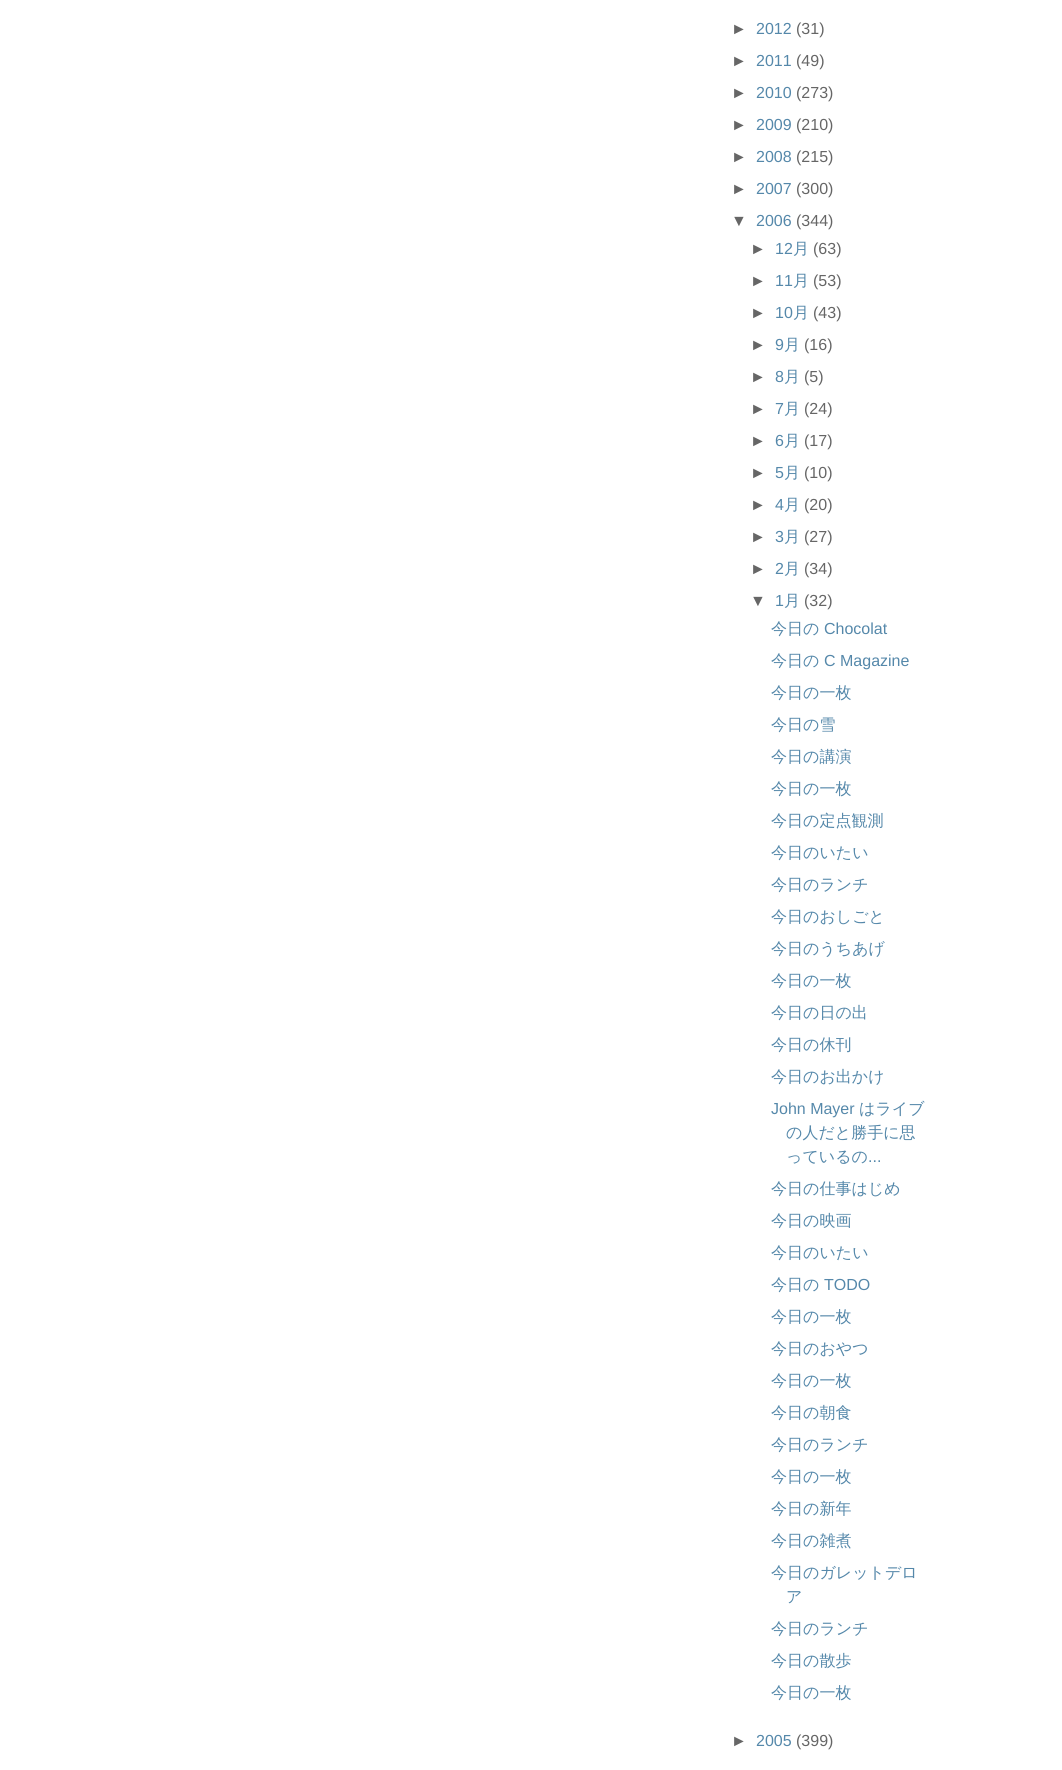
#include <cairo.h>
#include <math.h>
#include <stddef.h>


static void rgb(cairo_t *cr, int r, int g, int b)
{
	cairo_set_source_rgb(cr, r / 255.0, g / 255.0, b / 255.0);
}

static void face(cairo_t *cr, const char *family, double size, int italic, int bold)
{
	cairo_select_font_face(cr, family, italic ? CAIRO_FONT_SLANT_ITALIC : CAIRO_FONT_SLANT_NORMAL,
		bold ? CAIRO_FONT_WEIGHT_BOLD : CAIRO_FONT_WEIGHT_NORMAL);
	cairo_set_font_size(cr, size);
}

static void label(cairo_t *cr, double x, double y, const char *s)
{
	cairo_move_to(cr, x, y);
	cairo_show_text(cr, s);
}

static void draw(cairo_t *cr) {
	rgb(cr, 255, 255, 255);
	cairo_paint(cr);
	face(cr, "Liberation Sans", 16, 0, 0);
	rgb(cr, 102, 102, 102);
	label(cr, 731, 34, "►");
	rgb(cr, 85, 136, 170);
	label(cr, 756, 34, "2012");
	rgb(cr, 102, 102, 102);
	label(cr, 796, 34, "(31)");
	label(cr, 731, 66, "►");
	rgb(cr, 85, 136, 170);
	label(cr, 756, 66, "2011");
	rgb(cr, 102, 102, 102);
	label(cr, 796, 66, "(49)");
	label(cr, 731, 98, "►");
	rgb(cr, 85, 136, 170);
	label(cr, 756, 98, "2010");
	rgb(cr, 102, 102, 102);
	label(cr, 796, 98, "(273)");
	label(cr, 731, 130, "►");
	rgb(cr, 85, 136, 170);
	label(cr, 756, 130, "2009");
	rgb(cr, 102, 102, 102);
	label(cr, 796, 130, "(210)");
	label(cr, 731, 162, "►");
	rgb(cr, 85, 136, 170);
	label(cr, 756, 162, "2008");
	rgb(cr, 102, 102, 102);
	label(cr, 796, 162, "(215)");
	label(cr, 731, 194, "►");
	rgb(cr, 85, 136, 170);
	label(cr, 756, 194, "2007");
	rgb(cr, 102, 102, 102);
	label(cr, 796, 194, "(300)");
	label(cr, 731, 226, "▼");
	rgb(cr, 85, 136, 170);
	label(cr, 756, 226, "2006");
	rgb(cr, 102, 102, 102);
	label(cr, 796, 226, "(344)");
	label(cr, 750, 254, "►");
	rgb(cr, 85, 136, 170);
	label(cr, 775, 254, "12");
	face(cr, "WenQuanYi Zen Hei Medium", 16, 0, 0);
	label(cr, 793, 254, "月");
	face(cr, "Liberation Sans", 16, 0, 0);
	rgb(cr, 102, 102, 102);
	label(cr, 813, 254, "(63)");
	label(cr, 750, 286, "►");
	rgb(cr, 85, 136, 170);
	label(cr, 775, 286, "11");
	face(cr, "WenQuanYi Zen Hei Medium", 16, 0, 0);
	label(cr, 793, 286, "月");
	face(cr, "Liberation Sans", 16, 0, 0);
	rgb(cr, 102, 102, 102);
	label(cr, 813, 286, "(53)");
	label(cr, 750, 318, "►");
	rgb(cr, 85, 136, 170);
	label(cr, 775, 318, "10");
	face(cr, "WenQuanYi Zen Hei Medium", 16, 0, 0);
	label(cr, 793, 318, "月");
	face(cr, "Liberation Sans", 16, 0, 0);
	rgb(cr, 102, 102, 102);
	label(cr, 813, 318, "(43)");
	label(cr, 750, 350, "►");
	rgb(cr, 85, 136, 170);
	label(cr, 775, 350, "9");
	face(cr, "WenQuanYi Zen Hei Medium", 16, 0, 0);
	label(cr, 784, 350, "月");
	face(cr, "Liberation Sans", 16, 0, 0);
	rgb(cr, 102, 102, 102);
	label(cr, 804, 350, "(16)");
	label(cr, 750, 382, "►");
	rgb(cr, 85, 136, 170);
	label(cr, 775, 382, "8");
	face(cr, "WenQuanYi Zen Hei Medium", 16, 0, 0);
	label(cr, 784, 382, "月");
	face(cr, "Liberation Sans", 16, 0, 0);
	rgb(cr, 102, 102, 102);
	label(cr, 804, 382, "(5)");
	label(cr, 750, 414, "►");
	rgb(cr, 85, 136, 170);
	label(cr, 775, 414, "7");
	face(cr, "WenQuanYi Zen Hei Medium", 16, 0, 0);
	label(cr, 784, 414, "月");
	face(cr, "Liberation Sans", 16, 0, 0);
	rgb(cr, 102, 102, 102);
	label(cr, 804, 414, "(24)");
	label(cr, 750, 446, "►");
	rgb(cr, 85, 136, 170);
	label(cr, 775, 446, "6");
	face(cr, "WenQuanYi Zen Hei Medium", 16, 0, 0);
	label(cr, 784, 446, "月");
	face(cr, "Liberation Sans", 16, 0, 0);
	rgb(cr, 102, 102, 102);
	label(cr, 804, 446, "(17)");
	label(cr, 750, 478, "►");
	rgb(cr, 85, 136, 170);
	label(cr, 775, 478, "5");
	face(cr, "WenQuanYi Zen Hei Medium", 16, 0, 0);
	label(cr, 784, 478, "月");
	face(cr, "Liberation Sans", 16, 0, 0);
	rgb(cr, 102, 102, 102);
	label(cr, 804, 478, "(10)");
	label(cr, 750, 510, "►");
	rgb(cr, 85, 136, 170);
	label(cr, 775, 510, "4");
	face(cr, "WenQuanYi Zen Hei Medium", 16, 0, 0);
	label(cr, 784, 510, "月");
	face(cr, "Liberation Sans", 16, 0, 0);
	rgb(cr, 102, 102, 102);
	label(cr, 804, 510, "(20)");
	label(cr, 750, 542, "►");
	rgb(cr, 85, 136, 170);
	label(cr, 775, 542, "3");
	face(cr, "WenQuanYi Zen Hei Medium", 16, 0, 0);
	label(cr, 784, 542, "月");
	face(cr, "Liberation Sans", 16, 0, 0);
	rgb(cr, 102, 102, 102);
	label(cr, 804, 542, "(27)");
	label(cr, 750, 574, "►");
	rgb(cr, 85, 136, 170);
	label(cr, 775, 574, "2");
	face(cr, "WenQuanYi Zen Hei Medium", 16, 0, 0);
	label(cr, 784, 574, "月");
	face(cr, "Liberation Sans", 16, 0, 0);
	rgb(cr, 102, 102, 102);
	label(cr, 804, 574, "(34)");
	label(cr, 750, 606, "▼");
	rgb(cr, 85, 136, 170);
	label(cr, 775, 606, "1");
	face(cr, "WenQuanYi Zen Hei Medium", 16, 0, 0);
	label(cr, 784, 606, "月");
	face(cr, "Liberation Sans", 16, 0, 0);
	rgb(cr, 102, 102, 102);
	label(cr, 804, 606, "(32)");
	face(cr, "WenQuanYi Zen Hei Medium", 16, 0, 0);
	rgb(cr, 85, 136, 170);
	label(cr, 771, 634, "今日の");
	face(cr, "Liberation Sans", 16, 0, 0);
	label(cr, 824, 634, "Chocolat");
	face(cr, "WenQuanYi Zen Hei Medium", 16, 0, 0);
	label(cr, 771, 666, "今日の");
	face(cr, "Liberation Sans", 16, 0, 0);
	label(cr, 824, 666, "C Magazine");
	face(cr, "WenQuanYi Zen Hei Medium", 16, 0, 0);
	label(cr, 771, 698, "今日の一枚");
	label(cr, 771, 730, "今日の雪");
	label(cr, 771, 762, "今日の講演");
	label(cr, 771, 794, "今日の一枚");
	label(cr, 771, 826, "今日の定点観測");
	label(cr, 771, 858, "今日のいたい");
	label(cr, 771, 890, "今日のランチ");
	label(cr, 771, 922, "今日のおしごと");
	label(cr, 771, 954, "今日のうちあげ");
	label(cr, 771, 986, "今日の一枚");
	label(cr, 771, 1018, "今日の日の出");
	label(cr, 771, 1050, "今日の休刊");
	label(cr, 771, 1082, "今日のお出かけ");
	face(cr, "Liberation Sans", 16, 0, 0);
	label(cr, 771, 1114, "John Mayer");
	face(cr, "WenQuanYi Zen Hei Medium", 16, 0, 0);
	label(cr, 859, 1114, "はライブ");
	label(cr, 786, 1138, "の人だと勝手に思");
	label(cr, 786, 1162, "っているの");
	face(cr, "Liberation Sans", 16, 0, 0);
	label(cr, 868, 1162, "...");
	face(cr, "WenQuanYi Zen Hei Medium", 16, 0, 0);
	label(cr, 771, 1194, "今日の仕事はじめ");
	label(cr, 771, 1226, "今日の映画");
	label(cr, 771, 1258, "今日のいたい");
	label(cr, 771, 1290, "今日の");
	face(cr, "Liberation Sans", 16, 0, 0);
	label(cr, 824, 1290, "TODO");
	face(cr, "WenQuanYi Zen Hei Medium", 16, 0, 0);
	label(cr, 771, 1322, "今日の一枚");
	label(cr, 771, 1354, "今日のおやつ");
	label(cr, 771, 1386, "今日の一枚");
	label(cr, 771, 1418, "今日の朝食");
	label(cr, 771, 1450, "今日のランチ");
	label(cr, 771, 1482, "今日の一枚");
	label(cr, 771, 1514, "今日の新年");
	label(cr, 771, 1546, "今日の雑煮");
	label(cr, 771, 1578, "今日のガレットデロ");
	label(cr, 786, 1602, "ア");
	label(cr, 771, 1634, "今日のランチ");
	label(cr, 771, 1666, "今日の散歩");
	label(cr, 771, 1698, "今日の一枚");
	face(cr, "Liberation Sans", 16, 0, 0);
	rgb(cr, 102, 102, 102);
	label(cr, 731, 1746, "►");
	rgb(cr, 85, 136, 170);
	label(cr, 756, 1746, "2005");
	rgb(cr, 102, 102, 102);
	label(cr, 796, 1746, "(399)");
}

int main(void) {
	cairo_surface_t *surface = cairo_image_surface_create(CAIRO_FORMAT_RGB24, 1062, 1770);
	cairo_t *cr = cairo_create(surface);
	cairo_font_options_t *options = cairo_font_options_create();
	cairo_font_options_set_hint_metrics(options, CAIRO_HINT_METRICS_OFF);
	cairo_font_options_set_hint_style(options, CAIRO_HINT_STYLE_NONE);
	cairo_set_font_options(cr, options);
	cairo_set_miter_limit(cr, 4);
	draw(cr);
	cairo_surface_write_to_png(surface, "render.png");
	cairo_font_options_destroy(options);
	cairo_destroy(cr);
	cairo_surface_destroy(surface);
	return 0;
}
